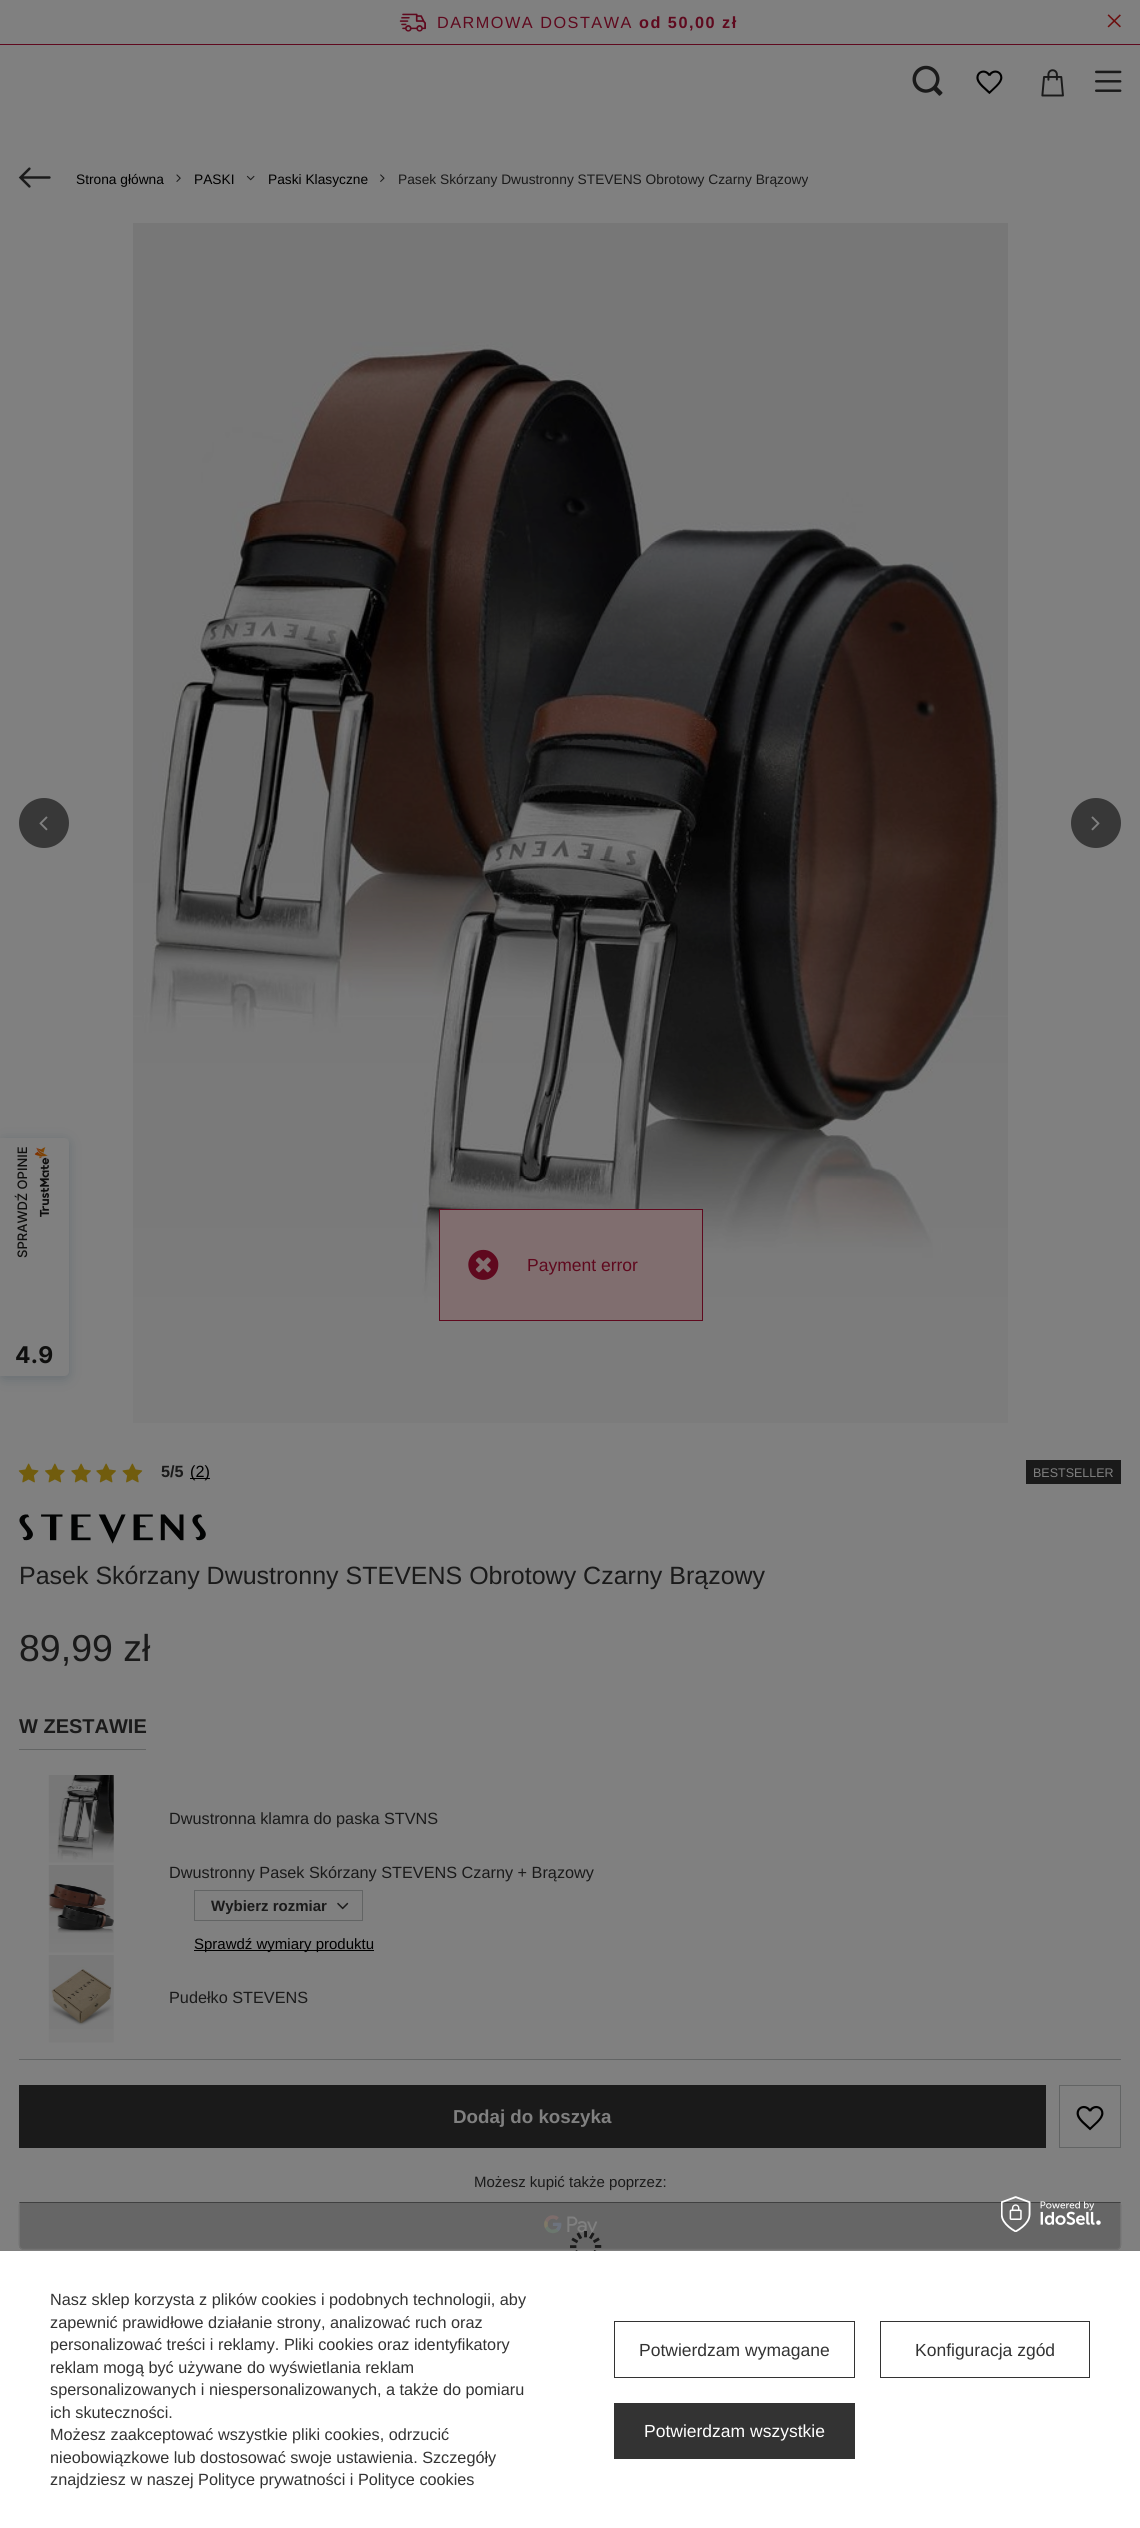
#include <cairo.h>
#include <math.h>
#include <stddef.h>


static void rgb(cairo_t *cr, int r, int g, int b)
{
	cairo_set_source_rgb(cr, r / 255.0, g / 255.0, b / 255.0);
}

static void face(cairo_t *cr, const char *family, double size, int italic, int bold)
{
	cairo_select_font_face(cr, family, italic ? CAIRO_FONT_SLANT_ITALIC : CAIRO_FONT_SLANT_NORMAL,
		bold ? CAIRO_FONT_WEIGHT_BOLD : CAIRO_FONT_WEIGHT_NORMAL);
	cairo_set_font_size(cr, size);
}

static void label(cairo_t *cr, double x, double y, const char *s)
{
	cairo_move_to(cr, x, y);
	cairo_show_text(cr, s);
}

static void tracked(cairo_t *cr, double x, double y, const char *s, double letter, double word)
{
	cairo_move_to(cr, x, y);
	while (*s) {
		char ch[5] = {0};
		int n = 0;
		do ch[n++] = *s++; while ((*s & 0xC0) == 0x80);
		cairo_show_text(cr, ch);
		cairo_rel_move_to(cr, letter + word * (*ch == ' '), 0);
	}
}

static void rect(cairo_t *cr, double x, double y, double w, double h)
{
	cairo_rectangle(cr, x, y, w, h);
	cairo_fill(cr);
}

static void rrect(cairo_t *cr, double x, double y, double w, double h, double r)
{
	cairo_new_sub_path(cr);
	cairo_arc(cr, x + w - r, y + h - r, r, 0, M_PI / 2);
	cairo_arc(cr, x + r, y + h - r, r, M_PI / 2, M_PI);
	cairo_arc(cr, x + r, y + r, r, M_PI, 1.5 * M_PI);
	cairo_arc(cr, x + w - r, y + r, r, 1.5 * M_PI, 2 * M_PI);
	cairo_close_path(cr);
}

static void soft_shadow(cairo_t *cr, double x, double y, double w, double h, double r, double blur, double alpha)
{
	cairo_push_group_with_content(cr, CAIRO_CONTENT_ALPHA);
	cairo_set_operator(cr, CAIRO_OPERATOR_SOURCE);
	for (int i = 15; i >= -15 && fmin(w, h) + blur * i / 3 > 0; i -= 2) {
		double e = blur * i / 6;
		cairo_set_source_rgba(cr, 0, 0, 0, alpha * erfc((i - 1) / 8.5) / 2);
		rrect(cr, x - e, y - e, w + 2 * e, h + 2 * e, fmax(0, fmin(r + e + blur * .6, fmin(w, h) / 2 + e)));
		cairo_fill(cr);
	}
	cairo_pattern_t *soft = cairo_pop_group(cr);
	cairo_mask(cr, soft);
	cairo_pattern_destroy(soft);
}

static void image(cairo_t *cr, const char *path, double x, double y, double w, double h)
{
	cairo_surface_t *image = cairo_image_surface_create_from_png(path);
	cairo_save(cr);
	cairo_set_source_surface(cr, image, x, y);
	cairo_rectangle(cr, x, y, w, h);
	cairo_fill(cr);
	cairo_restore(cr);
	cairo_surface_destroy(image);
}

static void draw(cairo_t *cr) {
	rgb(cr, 128, 128, 128);
	cairo_paint(cr);
	rgb(cr, 95, 9, 30);
	rect(cr, 0, 44, 1140, 1);
	image(cr, "image0.png", 399, 13, 27, 19);
	face(cr, "Liberation Sans", 16.25, 0, 0);
	tracked(cr, 437, 28, "DARMOWA DOSTAWA", 1.5, 0);
	face(cr, "Liberation Sans", 16.25, 0, 1);
	tracked(cr, 639, 28, "od 50,00 zł", 1.5, 0);
	image(cr, "image1.png", 1107, 14, 14, 14);
	image(cr, "image2.png", 912, 65, 31, 31);
	image(cr, "image3.png", 976, 70, 27, 24);
	image(cr, "image4.png", 1041, 69, 23, 28);
	image(cr, "image5.png", 1095, 70, 27, 22);
	image(cr, "image6.png", 18, 167, 33, 21);
	face(cr, "Liberation Sans", 13.75, 0, 0);
	rgb(cr, 0, 0, 0);
	label(cr, 76, 184, "Strona główna");
	image(cr, "image7.png", 176, 174, 5, 8);
	label(cr, 194, 184, "PASKI");
	image(cr, "image8.png", 246, 175, 9, 6);
	label(cr, 268, 184, "Paski Klasyczne");
	image(cr, "image9.png", 380, 174, 5, 8);
	rgb(cr, 26, 26, 26);
	label(cr, 398, 184, "Pasek Skórzany Dwustronny STEVENS Obrotowy Czarny Brązowy");
	rgb(cr, 56, 56, 56);
	cairo_new_path(cr);
	cairo_arc(cr, 44, 823, 25, 0, 2 * M_PI);
	cairo_fill(cr);
	image(cr, "image10.png", 39, 816, 9, 15);
	image(cr, "image11.png", 133, 223, 875, 1200);
	cairo_arc(cr, 1096, 823, 25, 0, 2 * M_PI);
	cairo_fill(cr);
	image(cr, "image12.png", 1091, 816, 9, 15);
	image(cr, "image13.png", 18, 1463, 21, 20);
	image(cr, "image14.png", 45, 1463, 20, 20);
	image(cr, "image15.png", 71, 1463, 20, 20);
	image(cr, "image15.png", 96, 1463, 20, 20);
	image(cr, "image16.png", 122, 1463, 21, 20);
	face(cr, "Liberation Sans", 16.25, 0, 1);
	rgb(cr, 26, 26, 26);
	label(cr, 161, 1477, "5/5");
	rgb(cr, 0, 0, 0);
	rect(cr, 190, 1478, 20, 1);
	face(cr, "Liberation Sans", 16.25, 0, 0);
	label(cr, 190, 1477, "(2)");
	rgb(cr, 26, 26, 26);
	rect(cr, 1026, 1460, 95, 24);
	face(cr, "Liberation Sans", 12.5, 0, 0);
	rgb(cr, 128, 128, 128);
	label(cr, 1033, 1477, "BESTSELLER");
	image(cr, "image17.png", 19, 1514, 187, 30);
	face(cr, "Liberation Sans", 25, 0, 0);
	rgb(cr, 26, 26, 26);
	label(cr, 19, 1584, "Pasek Skórzany Dwustronny STEVENS Obrotowy Czarny Brązowy");
	face(cr, "Liberation Sans", 37.5, 0, 0);
	label(cr, 19, 1661, "89,99 zł");
	rgb(cr, 98, 100, 100);
	rect(cr, 19, 2059, 1102, 1);
	rect(cr, 19, 1749, 127, 1);
	face(cr, "Liberation Sans", 20, 0, 1);
	rgb(cr, 26, 26, 26);
	label(cr, 19, 1733, "W ZESTAWIE");
	image(cr, "image18.png", 48, 1775, 66, 88);
	face(cr, "Liberation Sans", 16.25, 0, 0);
	label(cr, 169, 1824, "Dwustronna klamra do paska STVNS");
	image(cr, "image19.png", 48, 1865, 66, 88);
	label(cr, 169, 1878, "Dwustronny Pasek Skórzany STEVENS Czarny + Brązowy");
	cairo_rectangle(cr, 194.5, 1890.5, 168, 30);
	rgb(cr, 98, 100, 100);
	cairo_set_line_width(cr, 1);
	cairo_stroke(cr);
	face(cr, "Liberation Sans", 15, 0, 1);
	rgb(cr, 26, 26, 26);
	label(cr, 211, 1911, "Wybierz rozmiar");
	image(cr, "image20.png", 337, 1902, 12, 8);
	rgb(cr, 0, 0, 0);
	rect(cr, 194, 1950, 180, 1);
	face(cr, "Liberation Sans", 15, 0, 0);
	label(cr, 194, 1949, "Sprawdź wymiary produktu");
	image(cr, "image21.png", 48, 1955, 66, 88);
	face(cr, "Liberation Sans", 16.25, 0, 0);
	rgb(cr, 26, 26, 26);
	label(cr, 169, 2003, "Pudełko STEVENS");
	rect(cr, 19, 2085, 1027, 63);
	face(cr, "Liberation Sans", 18.75, 0, 1);
	rgb(cr, 128, 128, 128);
	label(cr, 453, 2123, "Dodaj do koszyka");
	cairo_rectangle(cr, 1059.5, 2085.5, 61, 62);
	rgb(cr, 98, 100, 100);
	cairo_stroke(cr);
	image(cr, "image22.png", 1076, 2105, 28, 26);
	face(cr, "Liberation Sans", 15, 0, 0);
	rgb(cr, 26, 26, 26);
	label(cr, 474, 2187, "Możesz kupić także poprzez:");
	image(cr, "image23.png", 18, 2202, 1104, 48);
	image(cr, "image24.png", 570, 2230, 32, 21);
	rgb(cr, 6, 43, 64);
	soft_shadow(cr, 0, 1140, 69, 239, 5, 6, 0.2);
	rgb(cr, 128, 128, 128);
	cairo_new_path(cr);
	cairo_move_to(cr, 0, 1138);
	cairo_line_to(cr, 64, 1138);
	cairo_curve_to(cr, 67, 1138, 69, 1140, 69, 1143);
	cairo_line_to(cr, 69, 1371);
	cairo_curve_to(cr, 69, 1374, 67, 1376, 64, 1376);
	cairo_line_to(cr, 0, 1376);
	cairo_close_path(cr);
	cairo_fill(cr);
	face(cr, "Inter Medium", 13, 0, 0);
	rgb(cr, 15, 15, 14);
	cairo_save(cr);
	cairo_translate(cr, 27, 1258);
	cairo_rotate(cr, -90 * M_PI / 180);
	label(cr, 0, 0, "SPRAWDŹ OPINIE");
	cairo_restore(cr);
	image(cr, "image25.png", 34, 1147, 15, 70);
	face(cr, "Inter", 23, 0, 1);
	label(cr, 15, 1363, "4.9");
	rgb(cr, 128, 110, 111);
	cairo_rectangle(cr, 439.5, 1209.5, 263, 111);
	cairo_fill_preserve(cr);
	rgb(cr, 95, 9, 30);
	cairo_stroke(cr);
	image(cr, "image26.png", 468, 1249, 31, 31);
	face(cr, "Liberation Sans", 17.5, 0, 0);
	label(cr, 527, 1271, "Payment error");
	rgb(cr, 255, 255, 255);
	rect(cr, 0, 2251, 1140, 277);
	image(cr, "image27.png", 1001, 2196, 100, 36);
	face(cr, "Liberation Sans", 16.25, 0, 0);
	rgb(cr, 51, 51, 51);
	label(cr, 50, 2305, "Nasz sklep korzysta z plików cookies i podobnych technologii, aby");
	label(cr, 50, 2328, "zapewnić prawidłowe działanie strony, analizować ruch oraz");
	label(cr, 50, 2350, "personalizować treści i reklamy. Pliki cookies oraz identyfikatory");
	label(cr, 50, 2373, "reklam mogą być używane do wyświetlania reklam");
	label(cr, 50, 2395, "spersonalizowanych i niespersonalizowanych, a także do pomiaru");
	label(cr, 50, 2418, "ich skuteczności.");
	label(cr, 50, 2440, "Możesz zaakceptować wszystkie pliki cookies, odrzucić");
	label(cr, 50, 2463, "nieobowiązkowe lub dostosować swoje ustawienia. Szczegóły");
	label(cr, 50, 2485, "znajdziesz w naszej Polityce prywatności i Polityce cookies");
	cairo_rectangle(cr, 614.5, 2321.5, 240, 56);
	cairo_stroke(cr);
	face(cr, "Liberation Sans", 17.5, 0, 0);
	label(cr, 639, 2356, "Potwierdzam wymagane");
	cairo_rectangle(cr, 880.5, 2321.5, 209, 56);
	cairo_stroke(cr);
	label(cr, 915, 2356, "Konfiguracja zgód");
	rect(cr, 614, 2403, 241, 56);
	rgb(cr, 255, 255, 255);
	label(cr, 644, 2437, "Potwierdzam wszystkie");
}

int main(void) {
	cairo_surface_t *surface = cairo_image_surface_create(CAIRO_FORMAT_RGB24, 1140, 2528);
	cairo_t *cr = cairo_create(surface);
	cairo_font_options_t *options = cairo_font_options_create();
	cairo_font_options_set_hint_metrics(options, CAIRO_HINT_METRICS_OFF);
	cairo_font_options_set_hint_style(options, CAIRO_HINT_STYLE_NONE);
	cairo_set_font_options(cr, options);
	cairo_set_miter_limit(cr, 4);
	draw(cr);
	cairo_surface_write_to_png(surface, "render.png");
	cairo_font_options_destroy(options);
	cairo_destroy(cr);
	cairo_surface_destroy(surface);
	return 0;
}
